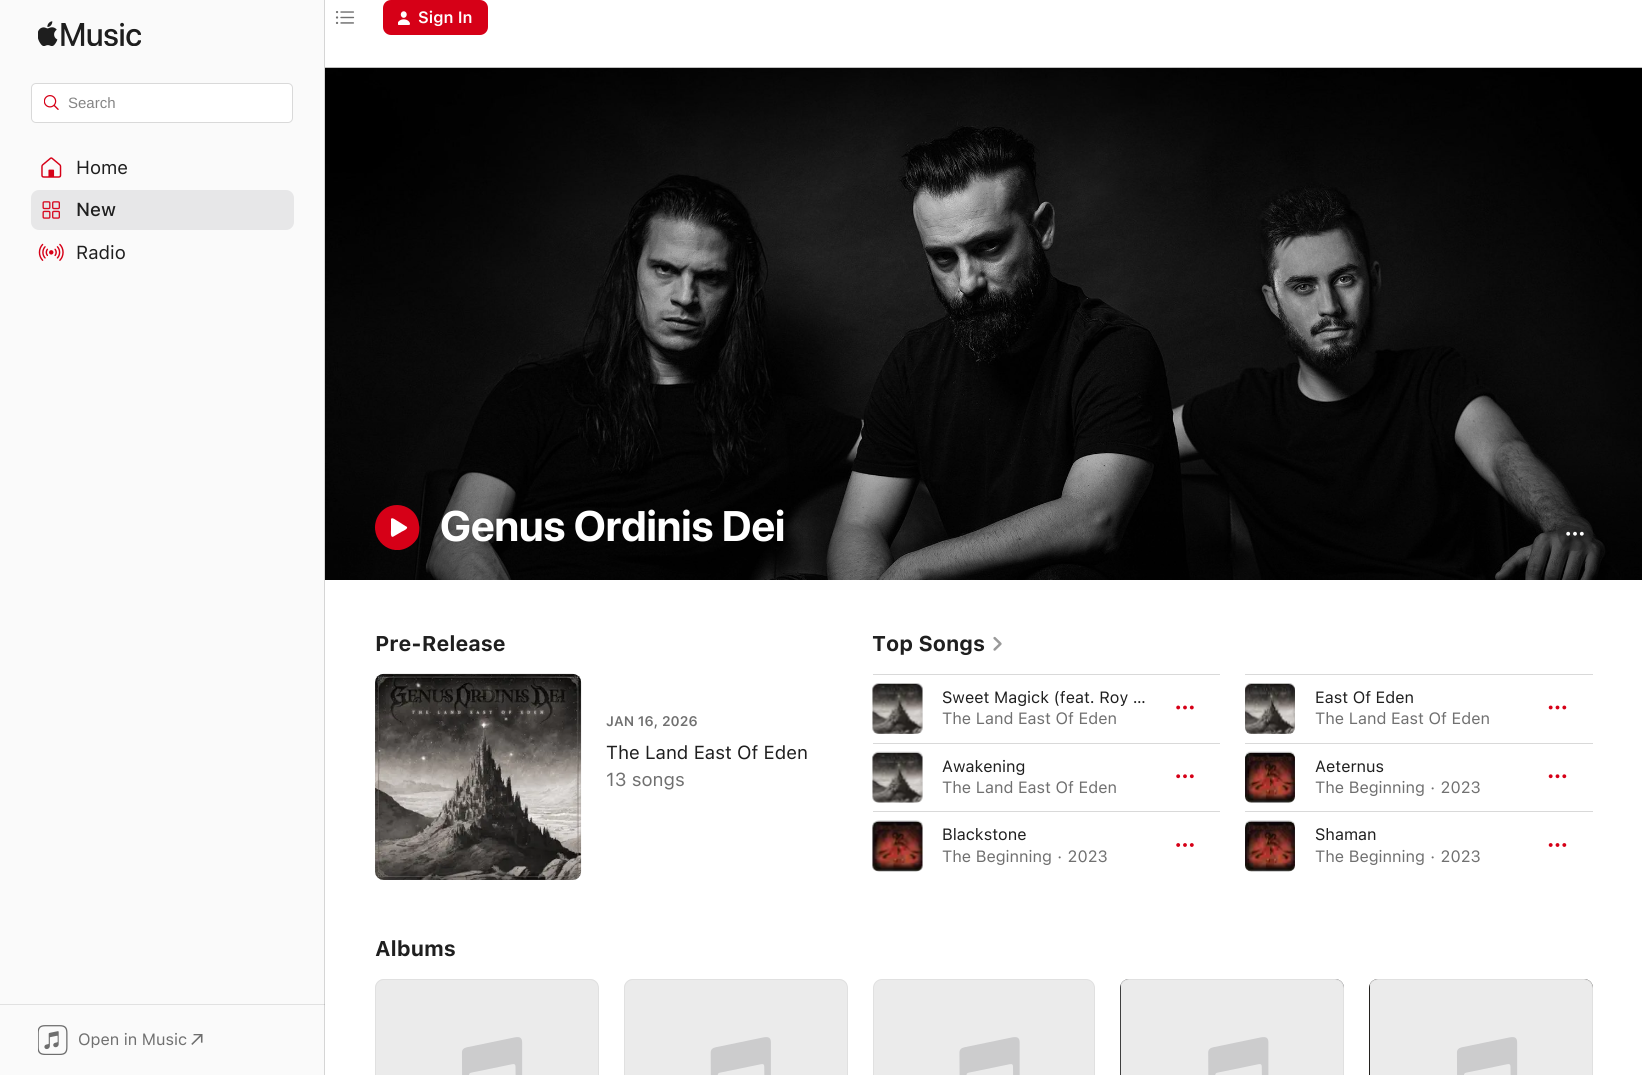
#include <cairo.h>
#include <math.h>
#include <stddef.h>


static void rgb(cairo_t *cr, int r, int g, int b)
{
	cairo_set_source_rgb(cr, r / 255.0, g / 255.0, b / 255.0);
}

static void face(cairo_t *cr, const char *family, double size, int italic, int bold)
{
	cairo_select_font_face(cr, family, italic ? CAIRO_FONT_SLANT_ITALIC : CAIRO_FONT_SLANT_NORMAL,
		bold ? CAIRO_FONT_WEIGHT_BOLD : CAIRO_FONT_WEIGHT_NORMAL);
	cairo_set_font_size(cr, size);
}

static void label(cairo_t *cr, double x, double y, const char *s)
{
	cairo_move_to(cr, x, y);
	cairo_show_text(cr, s);
}

static void rect(cairo_t *cr, double x, double y, double w, double h)
{
	cairo_rectangle(cr, x, y, w, h);
	cairo_fill(cr);
}

static void rrect(cairo_t *cr, double x, double y, double w, double h, double r)
{
	cairo_new_sub_path(cr);
	cairo_arc(cr, x + w - r, y + h - r, r, 0, M_PI / 2);
	cairo_arc(cr, x + r, y + h - r, r, M_PI / 2, M_PI);
	cairo_arc(cr, x + r, y + r, r, M_PI, 1.5 * M_PI);
	cairo_arc(cr, x + w - r, y + r, r, 1.5 * M_PI, 2 * M_PI);
	cairo_close_path(cr);
}

static void image(cairo_t *cr, const char *path, double x, double y, double w, double h)
{
	cairo_surface_t *image = cairo_image_surface_create_from_png(path);
	cairo_save(cr);
	cairo_set_source_surface(cr, image, x, y);
	cairo_rectangle(cr, x, y, w, h);
	cairo_fill(cr);
	cairo_restore(cr);
	cairo_surface_destroy(image);
}

static void draw(cairo_t *cr) {
	rgb(cr, 255, 255, 255);
	cairo_paint(cr);
	image(cr, "image0.png", 335, 11, 20, 13);
	rgb(cr, 214, 0, 23);
	rrect(cr, 383, 0, 105, 35, 8);
	cairo_fill(cr);
	image(cr, "image1.png", 398, 11, 12, 14);
	face(cr, "SF SemiBold", 16.25, 0, 0);
	rgb(cr, 255, 255, 255);
	label(cr, 418, 23, "Sign In");
	rgb(cr, 250, 250, 250);
	rect(cr, 0, 0, 324, 1075);
	rgb(cr, 225, 225, 225);
	rect(cr, 0, 1004, 325, 1);
	rgb(cr, 213, 213, 213);
	rect(cr, 324, 0, 1, 1075);
	rgb(cr, 192, 192, 192);
	rect(cr, 324, 1004, 1, 1);
	image(cr, "image2.png", 38, 21, 103, 25);
	rgb(cr, 255, 255, 255);
	rrect(cr, 31.5, 83.5, 261, 39, 4.5);
	cairo_fill_preserve(cr);
	rgb(cr, 217, 217, 217);
	cairo_set_line_width(cr, 1);
	cairo_stroke(cr);
	image(cr, "image3.png", 44, 95, 15, 15);
	face(cr, "Liberation Sans", 15, 0, 0);
	rgb(cr, 133, 133, 133);
	label(cr, 68, 108, "Search");
	image(cr, "image4.png", 41, 157, 21, 21);
	face(cr, "SF", 18.75, 0, 0);
	rgb(cr, 31, 31, 31);
	label(cr, 76, 174, "Home");
	rgb(cr, 231, 231, 232);
	rrect(cr, 31, 190, 263, 40, 8);
	cairo_fill(cr);
	image(cr, "image5.png", 42, 201, 18, 18);
	face(cr, "SF Medium", 18.75, 0, 0);
	rgb(cr, 31, 31, 31);
	label(cr, 76, 216, "New");
	image(cr, "image6.png", 38, 243, 26, 18);
	face(cr, "SF", 18.75, 0, 0);
	label(cr, 76, 259, "Radio");
	image(cr, "image7.png", 38, 1025, 30, 30);
	face(cr, "SF", 16.25, 0, 0);
	rgb(cr, 112, 112, 112);
	label(cr, 78, 1045, "Open in Music");
	image(cr, "image8.png", 191, 1034, 12, 11);
	image(cr, "image9.png", 325, 67, 1317, 513);
	cairo_save(cr);
	cairo_rectangle(cr, 375, 505, 45, 45);
	cairo_clip(cr);
	rgb(cr, 214, 0, 23);
	cairo_new_path(cr);
	cairo_move_to(cr, 377, 518);
	cairo_curve_to(cr, 387, 497, 417, 503, 419, 525);
	cairo_curve_to(cr, 420, 529, 419, 533, 418, 537);
	cairo_curve_to(cr, 416, 541, 413, 544, 410, 546);
	cairo_curve_to(cr, 391, 559, 368, 539, 377, 518);
	cairo_close_path(cr);
	cairo_fill(cr);
	cairo_restore(cr);
	rgb(cr, 255, 255, 255);
	cairo_new_path(cr);
	cairo_move_to(cr, 393.5, 536.5);
	cairo_curve_to(cr, 390, 538.5, 391, 531, 391, 530);
	cairo_line_to(cr, 391, 519);
	cairo_curve_to(cr, 392, 516.5, 397, 521, 397.5, 521);
	cairo_line_to(cr, 407, 527);
	cairo_curve_to(cr, 408, 529, 403, 531, 402, 531.5);
	cairo_close_path(cr);
	cairo_fill(cr);
	face(cr, "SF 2", 42.5, 0, 1);
	label(cr, 440, 541, "Genus Ordinis Dei");
	cairo_set_source_rgba(cr, 0.157, 0.157, 0.157, 0.5);
	cairo_new_path(cr);
	cairo_arc(cr, 1575.5, 533.5, 17.5, 0, 2 * M_PI);
	cairo_fill(cr);
	image(cr, "image10.png", 1566, 531, 18, 5);
	face(cr, "SF", 21.25, 0, 1);
	rgb(cr, 31, 31, 31);
	label(cr, 375, 651, "Pre-Release");
	image(cr, "image11.png", 375, 673, 207, 207);
	rrect(cr, 375.5, 674.5, 205, 205, 8.5);
	cairo_set_source_rgba(cr, 0.502, 0.502, 0.502, 0.1);
	cairo_stroke(cr);
	face(cr, "SF SemiBold", 13.75, 0, 0);
	rgb(cr, 112, 112, 112);
	label(cr, 606, 726, "JAN 16, 2026");
	face(cr, "SF", 18.75, 0, 0);
	rgb(cr, 31, 31, 31);
	label(cr, 606, 759, "The Land East Of Eden");
	rgb(cr, 112, 112, 112);
	label(cr, 606, 786, "13 songs");
	face(cr, "SF", 21.25, 0, 1);
	rgb(cr, 31, 31, 31);
	label(cr, 872, 651, "Top Songs");
	image(cr, "image12.png", 993, 636, 9, 15);
	rgb(cr, 217, 217, 217);
	rect(cr, 873, 674, 347, 1);
	image(cr, "image13.png", 872, 683, 51, 51);
	rrect(cr, 873.5, 683.5, 49, 49, 5.5);
	cairo_set_source_rgba(cr, 0.502, 0.502, 0.502, 0.1);
	cairo_stroke(cr);
	face(cr, "SF", 16.25, 0, 0);
	rgb(cr, 31, 31, 31);
	label(cr, 942, 703, "Sweet Magick (feat. Roy …");
	rgb(cr, 112, 112, 112);
	label(cr, 942, 724, "The Land East Of Eden");
	image(cr, "image14.png", 1176, 705, 18, 5);
	rgb(cr, 217, 217, 217);
	rect(cr, 1245, 674, 348, 1);
	image(cr, "image15.png", 1245, 683, 50, 51);
	rrect(cr, 1245.5, 683.5, 49, 49, 5.5);
	cairo_set_source_rgba(cr, 0.502, 0.502, 0.502, 0.1);
	cairo_stroke(cr);
	rgb(cr, 31, 31, 31);
	label(cr, 1315, 703, "East Of Eden");
	rgb(cr, 112, 112, 112);
	label(cr, 1315, 724, "The Land East Of Eden");
	image(cr, "image16.png", 1548, 705, 19, 5);
	rgb(cr, 217, 217, 217);
	rect(cr, 873, 743, 347, 1);
	image(cr, "image17.png", 872, 752, 51, 51);
	rrect(cr, 873.5, 751.5, 49, 49, 5.5);
	cairo_set_source_rgba(cr, 0.502, 0.502, 0.502, 0.1);
	cairo_stroke(cr);
	rgb(cr, 31, 31, 31);
	label(cr, 942, 772, "Awakening");
	rgb(cr, 112, 112, 112);
	label(cr, 942, 793, "The Land East Of Eden");
	image(cr, "image18.png", 1176, 774, 18, 5);
	rgb(cr, 217, 217, 217);
	rect(cr, 1245, 743, 348, 1);
	image(cr, "image19.png", 1245, 752, 50, 51);
	rrect(cr, 1245.5, 751.5, 49, 49, 5.5);
	cairo_set_source_rgba(cr, 0.502, 0.502, 0.502, 0.1);
	cairo_stroke(cr);
	rgb(cr, 31, 31, 31);
	label(cr, 1315, 772, "Aeternus");
	rgb(cr, 112, 112, 112);
	label(cr, 1315, 793, "The Beginning · 2023");
	image(cr, "image20.png", 1548, 774, 19, 5);
	rgb(cr, 217, 217, 217);
	rect(cr, 873, 811, 347, 1);
	image(cr, "image21.png", 872, 820, 51, 52);
	rrect(cr, 873.5, 820.5, 49, 49, 5.5);
	cairo_set_source_rgba(cr, 0.502, 0.502, 0.502, 0.1);
	cairo_stroke(cr);
	rgb(cr, 31, 31, 31);
	label(cr, 942, 840, "Blackstone");
	rgb(cr, 112, 112, 112);
	label(cr, 942, 862, "The Beginning · 2023");
	image(cr, "image22.png", 1176, 843, 18, 4);
	rgb(cr, 217, 217, 217);
	rect(cr, 1245, 811, 348, 1);
	image(cr, "image23.png", 1245, 820, 50, 52);
	rrect(cr, 1245.5, 820.5, 49, 49, 5.5);
	cairo_set_source_rgba(cr, 0.502, 0.502, 0.502, 0.1);
	cairo_stroke(cr);
	rgb(cr, 31, 31, 31);
	label(cr, 1315, 840, "Shaman");
	rgb(cr, 112, 112, 112);
	label(cr, 1315, 862, "The Beginning · 2023");
	image(cr, "image24.png", 1548, 843, 19, 4);
	face(cr, "SF", 21.25, 0, 1);
	rgb(cr, 31, 31, 31);
	label(cr, 375, 956, "Albums");
	rgb(cr, 235, 235, 235);
	cairo_new_path(cr);
	cairo_move_to(cr, 384, 979);
	cairo_line_to(cr, 590, 979);
	cairo_curve_to(cr, 595, 979, 599, 983, 599, 988);
	cairo_line_to(cr, 599, 1075);
	cairo_line_to(cr, 375, 1075);
	cairo_line_to(cr, 375, 988);
	cairo_curve_to(cr, 375, 983, 379, 979, 384, 979);
	cairo_close_path(cr);
	cairo_fill(cr);
	image(cr, "image25.png", 375, 979, 223, 96);
	rrect(cr, 375.5, 979.5, 223, 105, 8.5);
	cairo_set_source_rgba(cr, 0.502, 0.502, 0.502, 0.1);
	cairo_stroke(cr);
	rgb(cr, 235, 235, 235);
	cairo_new_path(cr);
	cairo_move_to(cr, 633, 979);
	cairo_line_to(cr, 839, 979);
	cairo_curve_to(cr, 844, 979, 848, 983, 848, 988);
	cairo_line_to(cr, 848, 1075);
	cairo_line_to(cr, 624, 1075);
	cairo_line_to(cr, 624, 988);
	cairo_curve_to(cr, 624, 983, 628, 979, 633, 979);
	cairo_close_path(cr);
	cairo_fill(cr);
	image(cr, "image26.png", 624, 979, 223, 96);
	rrect(cr, 624.5, 979.5, 223, 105, 8.5);
	cairo_set_source_rgba(cr, 0.502, 0.502, 0.502, 0.1);
	cairo_stroke(cr);
	image(cr, "image27.png", 873, 979, 222, 96);
	rrect(cr, 873.5, 979.5, 221, 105, 8.5);
	cairo_stroke(cr);
	rgb(cr, 56, 56, 57);
	cairo_new_path(cr);
	cairo_move_to(cr, 1129, 979);
	cairo_line_to(cr, 1335, 979);
	cairo_curve_to(cr, 1340, 979, 1344, 983, 1344, 988);
	cairo_line_to(cr, 1344, 1075);
	cairo_line_to(cr, 1120, 1075);
	cairo_line_to(cr, 1120, 988);
	cairo_curve_to(cr, 1120, 983, 1124, 979, 1129, 979);
	cairo_close_path(cr);
	cairo_fill(cr);
	image(cr, "image28.png", 1121, 979, 223, 96);
	rrect(cr, 1120.5, 979.5, 223, 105, 8.5);
	cairo_set_source_rgba(cr, 0.502, 0.502, 0.502, 0.1);
	cairo_stroke(cr);
	rgb(cr, 25, 23, 20);
	cairo_new_path(cr);
	cairo_move_to(cr, 1378, 979);
	cairo_line_to(cr, 1584, 979);
	cairo_curve_to(cr, 1589, 979, 1593, 983, 1593, 988);
	cairo_line_to(cr, 1593, 1075);
	cairo_line_to(cr, 1369, 1075);
	cairo_line_to(cr, 1369, 988);
	cairo_curve_to(cr, 1369, 983, 1373, 979, 1378, 979);
	cairo_close_path(cr);
	cairo_fill(cr);
	image(cr, "image29.png", 1370, 979, 223, 96);
	rrect(cr, 1369.5, 979.5, 223, 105, 8.5);
	cairo_set_source_rgba(cr, 0.502, 0.502, 0.502, 0.1);
	cairo_stroke(cr);
}

int main(void) {
	cairo_surface_t *surface = cairo_image_surface_create(CAIRO_FORMAT_RGB24, 1642, 1075);
	cairo_t *cr = cairo_create(surface);
	cairo_font_options_t *options = cairo_font_options_create();
	cairo_font_options_set_hint_metrics(options, CAIRO_HINT_METRICS_OFF);
	cairo_font_options_set_hint_style(options, CAIRO_HINT_STYLE_NONE);
	cairo_set_font_options(cr, options);
	cairo_set_miter_limit(cr, 4);
	draw(cr);
	cairo_surface_write_to_png(surface, "render.png");
	cairo_font_options_destroy(options);
	cairo_destroy(cr);
	cairo_surface_destroy(surface);
	return 0;
}
